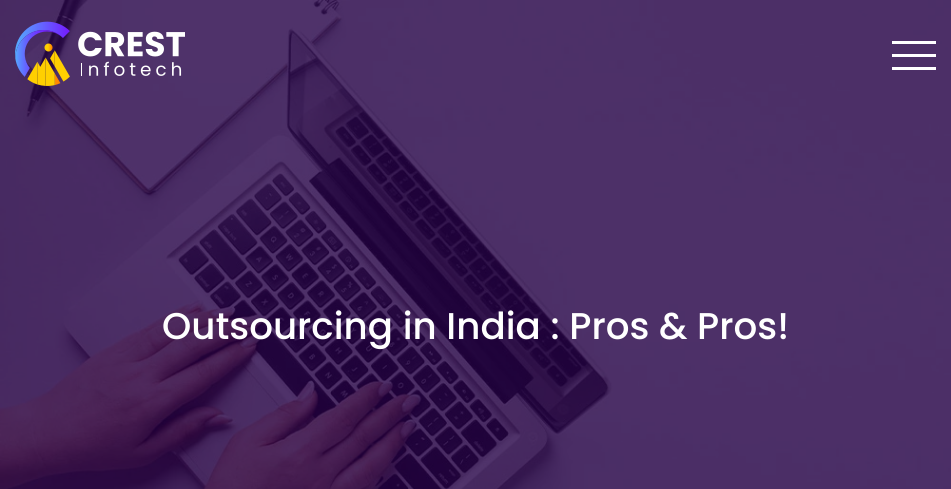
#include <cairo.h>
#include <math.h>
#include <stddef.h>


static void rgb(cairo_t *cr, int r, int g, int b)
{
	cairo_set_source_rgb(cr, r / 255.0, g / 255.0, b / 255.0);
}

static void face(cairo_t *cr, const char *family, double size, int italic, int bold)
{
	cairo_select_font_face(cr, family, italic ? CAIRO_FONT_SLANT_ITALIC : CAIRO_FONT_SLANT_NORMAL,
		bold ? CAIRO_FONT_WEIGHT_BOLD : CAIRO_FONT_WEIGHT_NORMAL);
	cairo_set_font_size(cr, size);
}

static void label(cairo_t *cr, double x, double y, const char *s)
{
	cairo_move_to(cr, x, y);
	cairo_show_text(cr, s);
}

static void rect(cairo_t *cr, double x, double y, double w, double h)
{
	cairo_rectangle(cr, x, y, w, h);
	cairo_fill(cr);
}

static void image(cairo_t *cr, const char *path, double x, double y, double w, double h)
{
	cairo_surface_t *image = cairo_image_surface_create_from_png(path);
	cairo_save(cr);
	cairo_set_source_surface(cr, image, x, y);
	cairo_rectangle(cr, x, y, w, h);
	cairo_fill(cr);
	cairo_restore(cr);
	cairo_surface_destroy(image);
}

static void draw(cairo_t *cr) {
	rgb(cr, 255, 255, 255);
	cairo_paint(cr);
	image(cr, "image1.png", 0, 0, 951, 489);
	image(cr, "image0.png", 15, 21, 170, 65);
	rgb(cr, 255, 255, 255);
	rect(cr, 892, 41, 44, 3);
	rect(cr, 892, 54, 44, 3);
	rect(cr, 892, 67, 44, 3);
	face(cr, "Poppins Medium", 37.25, 0, 0);
	label(cr, 162, 339, "Outsourcing in India : Pros & Pros!");
}

int main(void) {
	cairo_surface_t *surface = cairo_image_surface_create(CAIRO_FORMAT_RGB24, 951, 489);
	cairo_t *cr = cairo_create(surface);
	cairo_font_options_t *options = cairo_font_options_create();
	cairo_font_options_set_hint_metrics(options, CAIRO_HINT_METRICS_OFF);
	cairo_font_options_set_hint_style(options, CAIRO_HINT_STYLE_NONE);
	cairo_set_font_options(cr, options);
	cairo_set_miter_limit(cr, 4);
	draw(cr);
	cairo_surface_write_to_png(surface, "render.png");
	cairo_font_options_destroy(options);
	cairo_destroy(cr);
	cairo_surface_destroy(surface);
	return 0;
}
